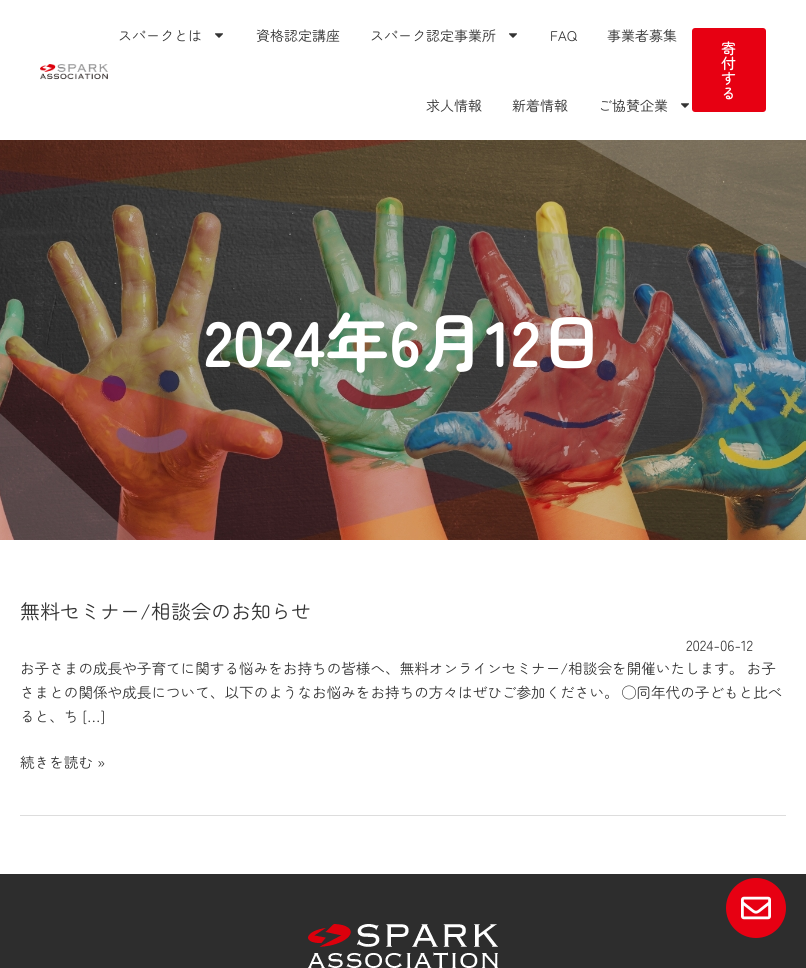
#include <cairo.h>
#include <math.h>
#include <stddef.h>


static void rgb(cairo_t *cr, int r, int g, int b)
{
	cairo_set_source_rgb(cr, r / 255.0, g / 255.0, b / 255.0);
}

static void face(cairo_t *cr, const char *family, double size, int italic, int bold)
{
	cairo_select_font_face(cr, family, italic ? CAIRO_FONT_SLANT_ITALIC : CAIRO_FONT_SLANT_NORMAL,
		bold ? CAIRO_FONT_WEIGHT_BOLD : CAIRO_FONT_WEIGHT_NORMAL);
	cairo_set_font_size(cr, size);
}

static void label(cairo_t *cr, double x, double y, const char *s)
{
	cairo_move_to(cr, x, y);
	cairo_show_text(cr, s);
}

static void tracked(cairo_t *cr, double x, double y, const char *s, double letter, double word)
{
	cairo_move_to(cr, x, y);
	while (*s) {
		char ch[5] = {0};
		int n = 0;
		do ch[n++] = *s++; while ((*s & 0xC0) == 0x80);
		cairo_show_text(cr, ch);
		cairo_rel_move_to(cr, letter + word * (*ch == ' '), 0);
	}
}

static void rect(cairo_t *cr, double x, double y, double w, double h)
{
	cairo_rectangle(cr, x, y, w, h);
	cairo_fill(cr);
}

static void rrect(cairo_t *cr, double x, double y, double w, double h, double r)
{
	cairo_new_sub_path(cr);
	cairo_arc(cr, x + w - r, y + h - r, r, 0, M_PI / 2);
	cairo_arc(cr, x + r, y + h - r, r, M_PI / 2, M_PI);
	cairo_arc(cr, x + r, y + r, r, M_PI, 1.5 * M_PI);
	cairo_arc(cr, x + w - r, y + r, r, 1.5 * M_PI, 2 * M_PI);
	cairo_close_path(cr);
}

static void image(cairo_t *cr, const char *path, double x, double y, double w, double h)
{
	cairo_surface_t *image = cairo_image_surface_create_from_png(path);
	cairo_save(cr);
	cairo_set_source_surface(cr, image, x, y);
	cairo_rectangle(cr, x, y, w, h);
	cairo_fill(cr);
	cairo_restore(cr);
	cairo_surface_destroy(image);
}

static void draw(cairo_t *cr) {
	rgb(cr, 255, 255, 255);
	cairo_paint(cr);
	image(cr, "image0.png", 40, 64, 68, 16);
	face(cr, "Zen Maru Gothic", 14, 0, 0);
	rgb(cr, 51, 51, 51);
	label(cr, 118, 41, "スパークとは");
	image(cr, "image1.png", 215, 33, 8, 5);
	label(cr, 256, 41, "資格認定講座");
	label(cr, 370, 41, "スパーク認定事業所");
	image(cr, "image1.png", 509, 33, 8, 5);
	label(cr, 550, 41, "FAQ");
	label(cr, 607, 41, "事業者募集");
	label(cr, 426, 111, "求人情報");
	label(cr, 512, 111, "新着情報");
	label(cr, 598, 111, "ご協賛企業");
	image(cr, "image1.png", 681, 103, 8, 5);
	rgb(cr, 231, 0, 18);
	rrect(cr, 692, 28, 74, 84, 3);
	cairo_fill(cr);
	face(cr, "Zen Maru Gothic Medium", 15, 0, 0);
	rgb(cr, 255, 255, 255);
	label(cr, 721, 54, "寄");
	label(cr, 721, 69, "付");
	label(cr, 721, 84, "す");
	label(cr, 721, 99, "る");
	rgb(cr, 45, 45, 45);
	rect(cr, 0, 874, 806, 94);
	rgb(cr, 231, 0, 18);
	cairo_new_path(cr);
	cairo_arc(cr, 756, 908, 30, 0, 2 * M_PI);
	cairo_fill(cr);
	image(cr, "image2.png", 741, 896, 30, 24);
	image(cr, "image3.png", 0, 140, 806, 400);
	face(cr, "Zen Maru Gothic", 64, 0, 1);
	rgb(cr, 255, 255, 255);
	label(cr, 204, 367, "2024年6月12日");
	rgb(cr, 221, 221, 221);
	rect(cr, 20, 815, 766, 1);
	face(cr, "Zen Maru Gothic", 20, 0, 0);
	rgb(cr, 51, 51, 51);
	label(cr, 20, 619, "無料セミナー/相談会のお知らせ");
	face(cr, "Zen Maru Gothic", 14.6, 0, 0);
	label(cr, 686, 651, "2024-06-12");
	tracked(cr, 20, 674, "お子さまの成長や子育てに関する悩みをお持ちの皆様へ、無料オンラインセミナー/相談会を開催いたします。 お子", 0, -1);
	tracked(cr, 20, 698, "さまとの関係や成長について、以下のようなお悩みをお持ちの方々はぜひご参加ください。 ◯同年代の子どもと比べ", 0, -1);
	label(cr, 20, 722, "ると、ち […]");
	label(cr, 20, 768, "続きを読む »");
	image(cr, "image4.png", 308, 924, 190, 44);
}

int main(void) {
	cairo_surface_t *surface = cairo_image_surface_create(CAIRO_FORMAT_RGB24, 806, 968);
	cairo_t *cr = cairo_create(surface);
	cairo_font_options_t *options = cairo_font_options_create();
	cairo_font_options_set_hint_metrics(options, CAIRO_HINT_METRICS_OFF);
	cairo_font_options_set_hint_style(options, CAIRO_HINT_STYLE_NONE);
	cairo_set_font_options(cr, options);
	cairo_set_miter_limit(cr, 4);
	draw(cr);
	cairo_surface_write_to_png(surface, "render.png");
	cairo_font_options_destroy(options);
	cairo_destroy(cr);
	cairo_surface_destroy(surface);
	return 0;
}
